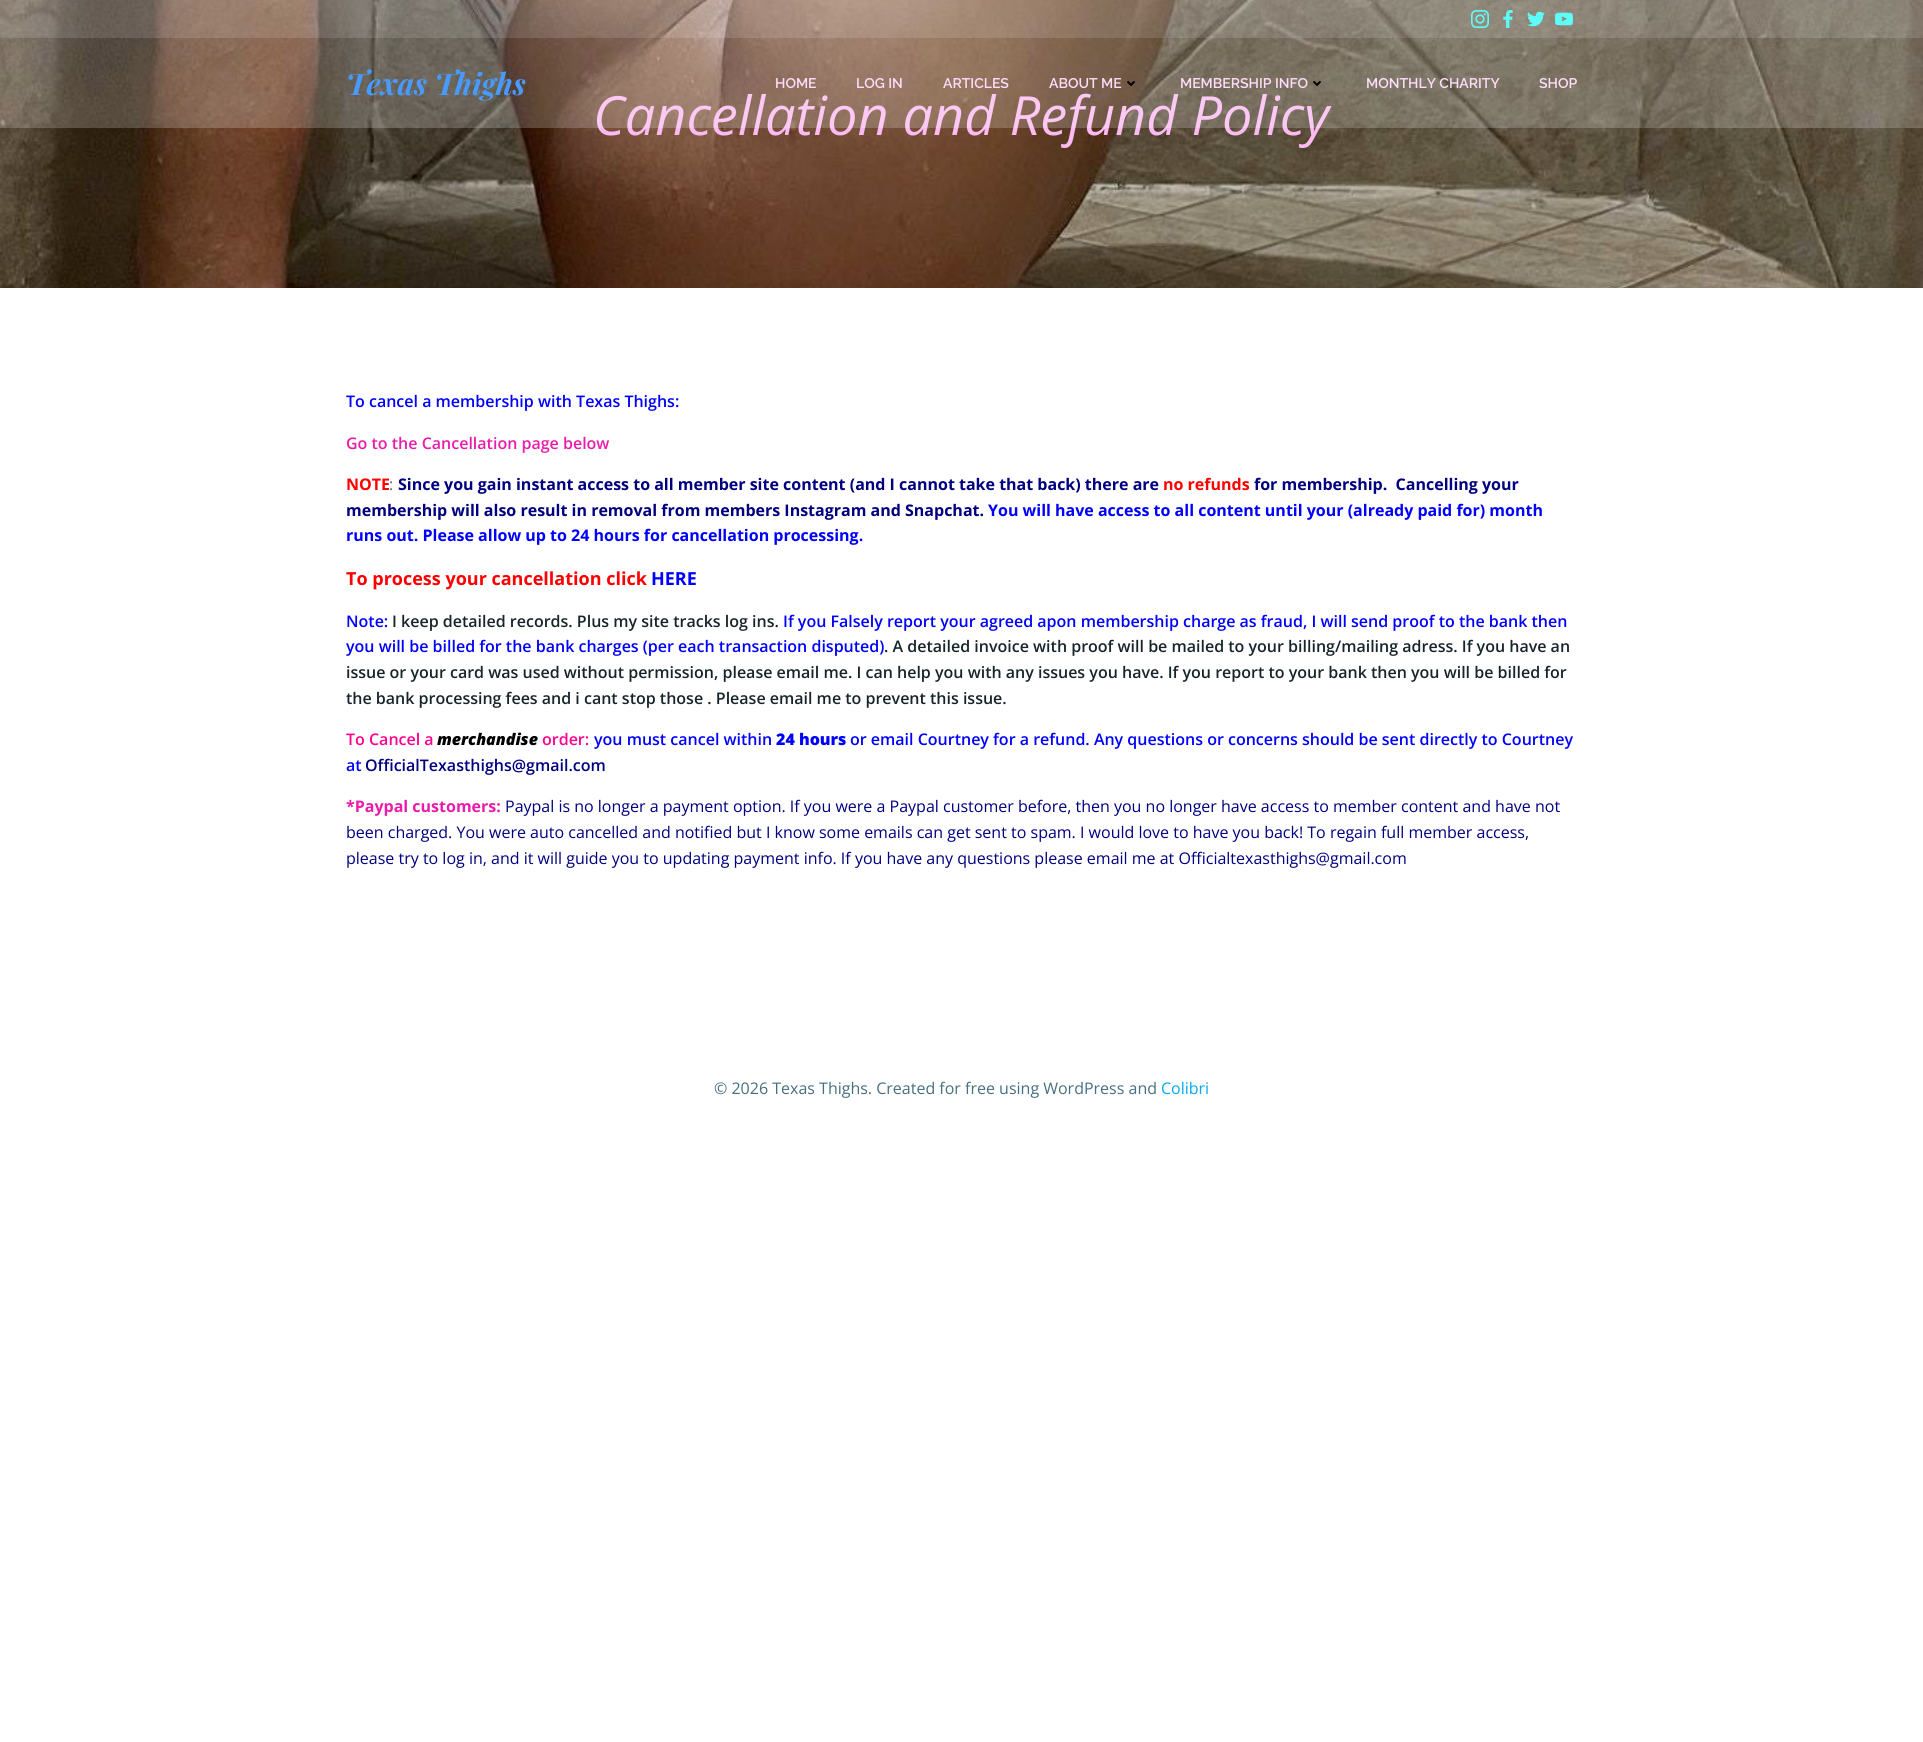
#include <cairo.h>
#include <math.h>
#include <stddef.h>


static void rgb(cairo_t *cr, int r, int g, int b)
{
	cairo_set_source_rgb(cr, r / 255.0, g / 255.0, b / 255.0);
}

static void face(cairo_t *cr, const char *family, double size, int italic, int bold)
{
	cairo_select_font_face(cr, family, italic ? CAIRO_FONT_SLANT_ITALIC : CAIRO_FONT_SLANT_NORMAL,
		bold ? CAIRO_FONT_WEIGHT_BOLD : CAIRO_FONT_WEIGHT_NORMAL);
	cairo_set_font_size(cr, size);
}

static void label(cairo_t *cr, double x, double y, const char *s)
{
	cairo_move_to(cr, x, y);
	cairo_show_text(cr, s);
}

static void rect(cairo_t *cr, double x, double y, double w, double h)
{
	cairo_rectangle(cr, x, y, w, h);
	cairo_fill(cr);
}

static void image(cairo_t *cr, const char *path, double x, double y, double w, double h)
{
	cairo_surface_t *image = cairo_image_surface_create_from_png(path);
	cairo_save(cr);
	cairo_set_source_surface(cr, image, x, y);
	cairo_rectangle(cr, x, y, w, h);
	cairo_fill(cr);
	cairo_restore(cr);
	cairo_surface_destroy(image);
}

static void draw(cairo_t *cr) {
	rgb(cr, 255, 255, 255);
	cairo_paint(cr);
	image(cr, "image6.png", 0, 0, 1923, 288);
	cairo_set_source_rgba(cr, 1, 1, 1, 0.3);
	rect(cr, 0, 0, 1923, 38);
	image(cr, "image0.png", 1471, 10, 18, 18);
	image(cr, "image1.png", 1503, 10, 10, 18);
	image(cr, "image2.png", 1527, 11, 18, 16);
	image(cr, "image3.png", 1555, 12, 18, 14);
	face(cr, "Open Sans", 54, 1, 0);
	rgb(cr, 251, 186, 241);
	label(cr, 593, 135, "Cancellation and Refund Policy");
	cairo_set_source_rgba(cr, 1, 1, 1, 0.2);
	rect(cr, 0, 38, 1923, 90);
	face(cr, "Playfair Display", 30, 1, 1);
	rgb(cr, 72, 155, 253);
	label(cr, 346, 95, "Texas Thighs");
	face(cr, "Raleway SemiBold", 14, 0, 0);
	rgb(cr, 255, 220, 251);
	label(cr, 775, 88, "HOME");
	label(cr, 856, 88, "LOG IN");
	label(cr, 943, 88, "ARTICLES");
	label(cr, 1049, 88, "ABOUT ME");
	image(cr, "image4.png", 1127, 81, 8, 5);
	label(cr, 1180, 88, "MEMBERSHIP INFO");
	image(cr, "image5.png", 1313, 81, 8, 5);
	label(cr, 1366, 88, "MONTHLY CHARITY");
	label(cr, 1539, 88, "SHOP");
	face(cr, "Open Sans SemiBold", 16, 0, 0);
	rgb(cr, 0, 0, 255);
	label(cr, 346, 407, "To cancel a membership with Texas Thighs:");
	rgb(cr, 235, 28, 169);
	label(cr, 346, 449, "Go to the Cancellation page below");
	face(cr, "Open Sans", 16, 0, 1);
	rgb(cr, 255, 0, 0);
	label(cr, 346, 490, "NOTE");
	face(cr, "Open Sans", 16, 0, 0);
	rgb(cr, 70, 112, 127);
	label(cr, 389, 490, ":");
	face(cr, "Open Sans", 16, 0, 1);
	rgb(cr, 0, 0, 128);
	label(cr, 398, 490, "Since you gain instant access to all member site content (and I cannot take that back) there are");
	rgb(cr, 255, 0, 0);
	label(cr, 1163, 490, "no refunds");
	rgb(cr, 0, 0, 128);
	label(cr, 1254, 490, "for membership.  Cancelling your");
	label(cr, 346, 516, "membership will also result in removal from members Instagram and Snapchat.");
	rgb(cr, 0, 0, 255);
	label(cr, 988, 516, "You will have access to all content until your (already paid for) month");
	label(cr, 346, 541, "runs out. Please allow up to 24 hours for cancellation processing.");
	face(cr, "Open Sans", 18, 0, 1);
	rgb(cr, 255, 0, 0);
	label(cr, 346, 585, "To process your cancellation click");
	rgb(cr, 0, 0, 255);
	label(cr, 651, 585, "HERE");
	face(cr, "Open Sans SemiBold", 16, 0, 0);
	label(cr, 346, 627, "Note:");
	rgb(cr, 23, 37, 42);
	label(cr, 392, 627, "I keep detailed records. Plus my site tracks log ins.");
	rgb(cr, 0, 0, 255);
	label(cr, 783, 627, "If you Falsely report your agreed apon membership charge as fraud, I will send proof to the bank then");
	label(cr, 346, 652, "you will be billed for the bank charges (per each transaction disputed)");
	rgb(cr, 23, 37, 42);
	label(cr, 884, 652, ". A detailed invoice with proof will be mailed to your billing/mailing adress. If you have an");
	label(cr, 346, 678, "issue or your card was used without permission, please email me. I can help you with any issues you have. If you report to your bank then you will be billed for");
	label(cr, 346, 704, "the bank processing fees and i cant stop those . Please email me to prevent this issue.");
	rgb(cr, 255, 0, 144);
	label(cr, 346, 745, "To Cancel a");
	face(cr, "Open Sans ExtraBold", 16, 1, 0);
	rgb(cr, 0, 0, 0);
	label(cr, 437, 745, "merchandise");
	face(cr, "Open Sans SemiBold", 16, 0, 0);
	rgb(cr, 255, 0, 144);
	label(cr, 542, 745, "order:");
	rgb(cr, 0, 0, 255);
	label(cr, 594, 745, "you must cancel within");
	face(cr, "Open Sans ExtraBold", 16, 0, 0);
	label(cr, 776, 745, "24 hours");
	face(cr, "Open Sans SemiBold", 16, 0, 0);
	label(cr, 850, 745, "or email Courtney for a refund. Any questions or concerns should be sent directly to Courtney");
	label(cr, 346, 771, "at");
	rgb(cr, 0, 0, 128);
	label(cr, 365, 771, "OfficialTexasthighs@gmail.com");
	face(cr, "Open Sans", 16, 0, 1);
	rgb(cr, 235, 28, 169);
	label(cr, 346, 812, "*Paypal customers:");
	face(cr, "Open Sans", 16, 0, 0);
	rgb(cr, 0, 0, 128);
	label(cr, 505, 812, "Paypal is no longer a payment option. If you were a Paypal customer before, then you no longer have access to member content and have not");
	label(cr, 346, 838, "been charged. You were auto cancelled and notified but I know some emails can get sent to spam. I would love to have you back! To regain full member access,");
	label(cr, 346, 864, "please try to log in, and it will guide you to updating payment info. If you have any questions please email me at Officialtexasthighs@gmail.com");
	rgb(cr, 70, 112, 127);
	label(cr, 714, 1094, "© 2026 Texas Thighs. Created for free using WordPress and");
	rgb(cr, 3, 169, 244);
	label(cr, 1161, 1094, "Colibri");
}

int main(void) {
	cairo_surface_t *surface = cairo_image_surface_create(CAIRO_FORMAT_RGB24, 1923, 1742);
	cairo_t *cr = cairo_create(surface);
	cairo_font_options_t *options = cairo_font_options_create();
	cairo_font_options_set_hint_metrics(options, CAIRO_HINT_METRICS_OFF);
	cairo_font_options_set_hint_style(options, CAIRO_HINT_STYLE_NONE);
	cairo_set_font_options(cr, options);
	cairo_set_miter_limit(cr, 4);
	draw(cr);
	cairo_surface_write_to_png(surface, "render.png");
	cairo_font_options_destroy(options);
	cairo_destroy(cr);
	cairo_surface_destroy(surface);
	return 0;
}
